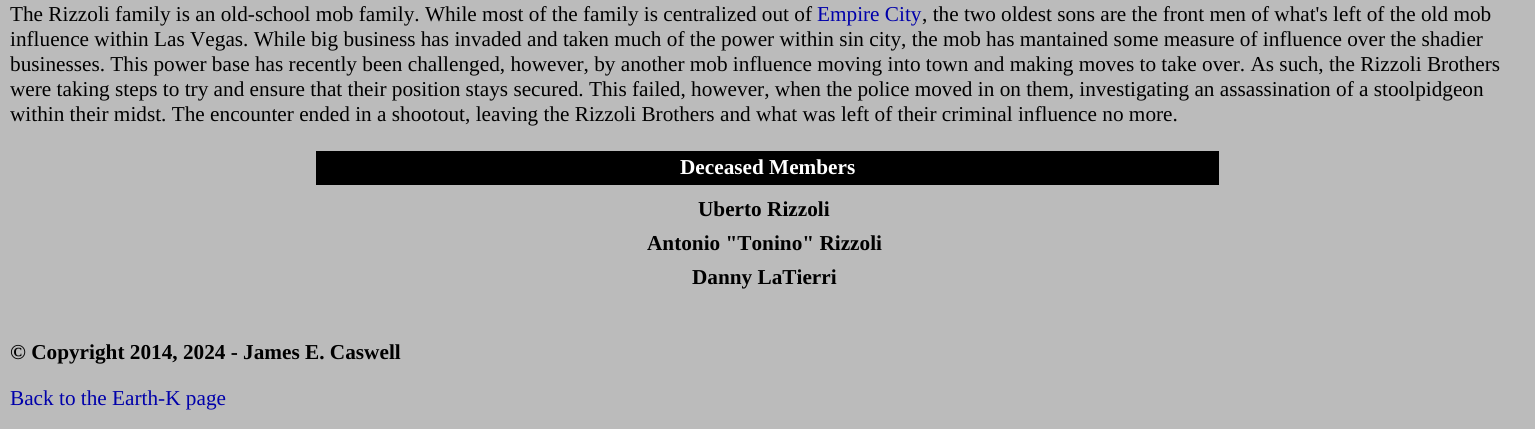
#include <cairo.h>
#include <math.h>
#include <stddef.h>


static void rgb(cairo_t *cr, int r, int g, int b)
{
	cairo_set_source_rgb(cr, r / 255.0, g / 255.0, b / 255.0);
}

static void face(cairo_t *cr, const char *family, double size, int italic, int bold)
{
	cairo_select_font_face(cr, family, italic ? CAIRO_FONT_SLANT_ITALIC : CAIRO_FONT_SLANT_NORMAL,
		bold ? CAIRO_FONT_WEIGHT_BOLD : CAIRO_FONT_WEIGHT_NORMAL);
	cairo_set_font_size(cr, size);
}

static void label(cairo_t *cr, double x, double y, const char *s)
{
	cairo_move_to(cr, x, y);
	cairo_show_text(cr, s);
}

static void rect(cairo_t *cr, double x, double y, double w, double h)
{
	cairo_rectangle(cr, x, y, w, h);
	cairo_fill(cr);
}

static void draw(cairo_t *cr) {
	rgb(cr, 187, 187, 187);
	cairo_paint(cr);
	face(cr, "Liberation Serif", 21.25, 0, 0);
	rgb(cr, 0, 0, 0);
	label(cr, 10, 21, "The Rizzoli family is an old-school mob family. While most of the family is centralized out of");
	rgb(cr, 0, 0, 170);
	label(cr, 817, 21, "Empire City");
	rgb(cr, 0, 0, 0);
	label(cr, 922, 21, ", the two oldest sons are the front men of what's left of the old mob");
	label(cr, 10, 46, "influence within Las Vegas. While big business has invaded and taken much of the power within sin city, the mob has mantained some measure of influence over the shadier");
	label(cr, 10, 71, "businesses. This power base has recently been challenged, however, by another mob influence moving into town and making moves to take over. As such, the Rizzoli Brothers");
	label(cr, 10, 96, "were taking steps to try and ensure that their position stays secured. This failed, however, when the police moved in on them, investigating an assassination of a stoolpidgeon");
	label(cr, 10, 121, "within their midst. The encounter ended in a shootout, leaving the Rizzoli Brothers and what was left of their criminal influence no more.");
	rect(cr, 316, 151, 903, 34);
	face(cr, "Liberation Serif", 21.25, 0, 1);
	rgb(cr, 255, 255, 255);
	label(cr, 680, 174, "Deceased Members");
	rgb(cr, 0, 0, 0);
	label(cr, 698, 216, "Uberto Rizzoli");
	label(cr, 647, 250, "Antonio \"Tonino\" Rizzoli");
	label(cr, 692, 284, "Danny LaTierri");
	label(cr, 10, 359, "© Copyright 2014, 2024 - James E. Caswell");
	face(cr, "Liberation Serif", 21.25, 0, 0);
	rgb(cr, 0, 0, 170);
	label(cr, 10, 405, "Back to the Earth-K page");
}

int main(void) {
	cairo_surface_t *surface = cairo_image_surface_create(CAIRO_FORMAT_RGB24, 1535, 429);
	cairo_t *cr = cairo_create(surface);
	cairo_font_options_t *options = cairo_font_options_create();
	cairo_font_options_set_hint_metrics(options, CAIRO_HINT_METRICS_OFF);
	cairo_font_options_set_hint_style(options, CAIRO_HINT_STYLE_NONE);
	cairo_set_font_options(cr, options);
	cairo_set_miter_limit(cr, 4);
	draw(cr);
	cairo_surface_write_to_png(surface, "render.png");
	cairo_font_options_destroy(options);
	cairo_destroy(cr);
	cairo_surface_destroy(surface);
	return 0;
}
